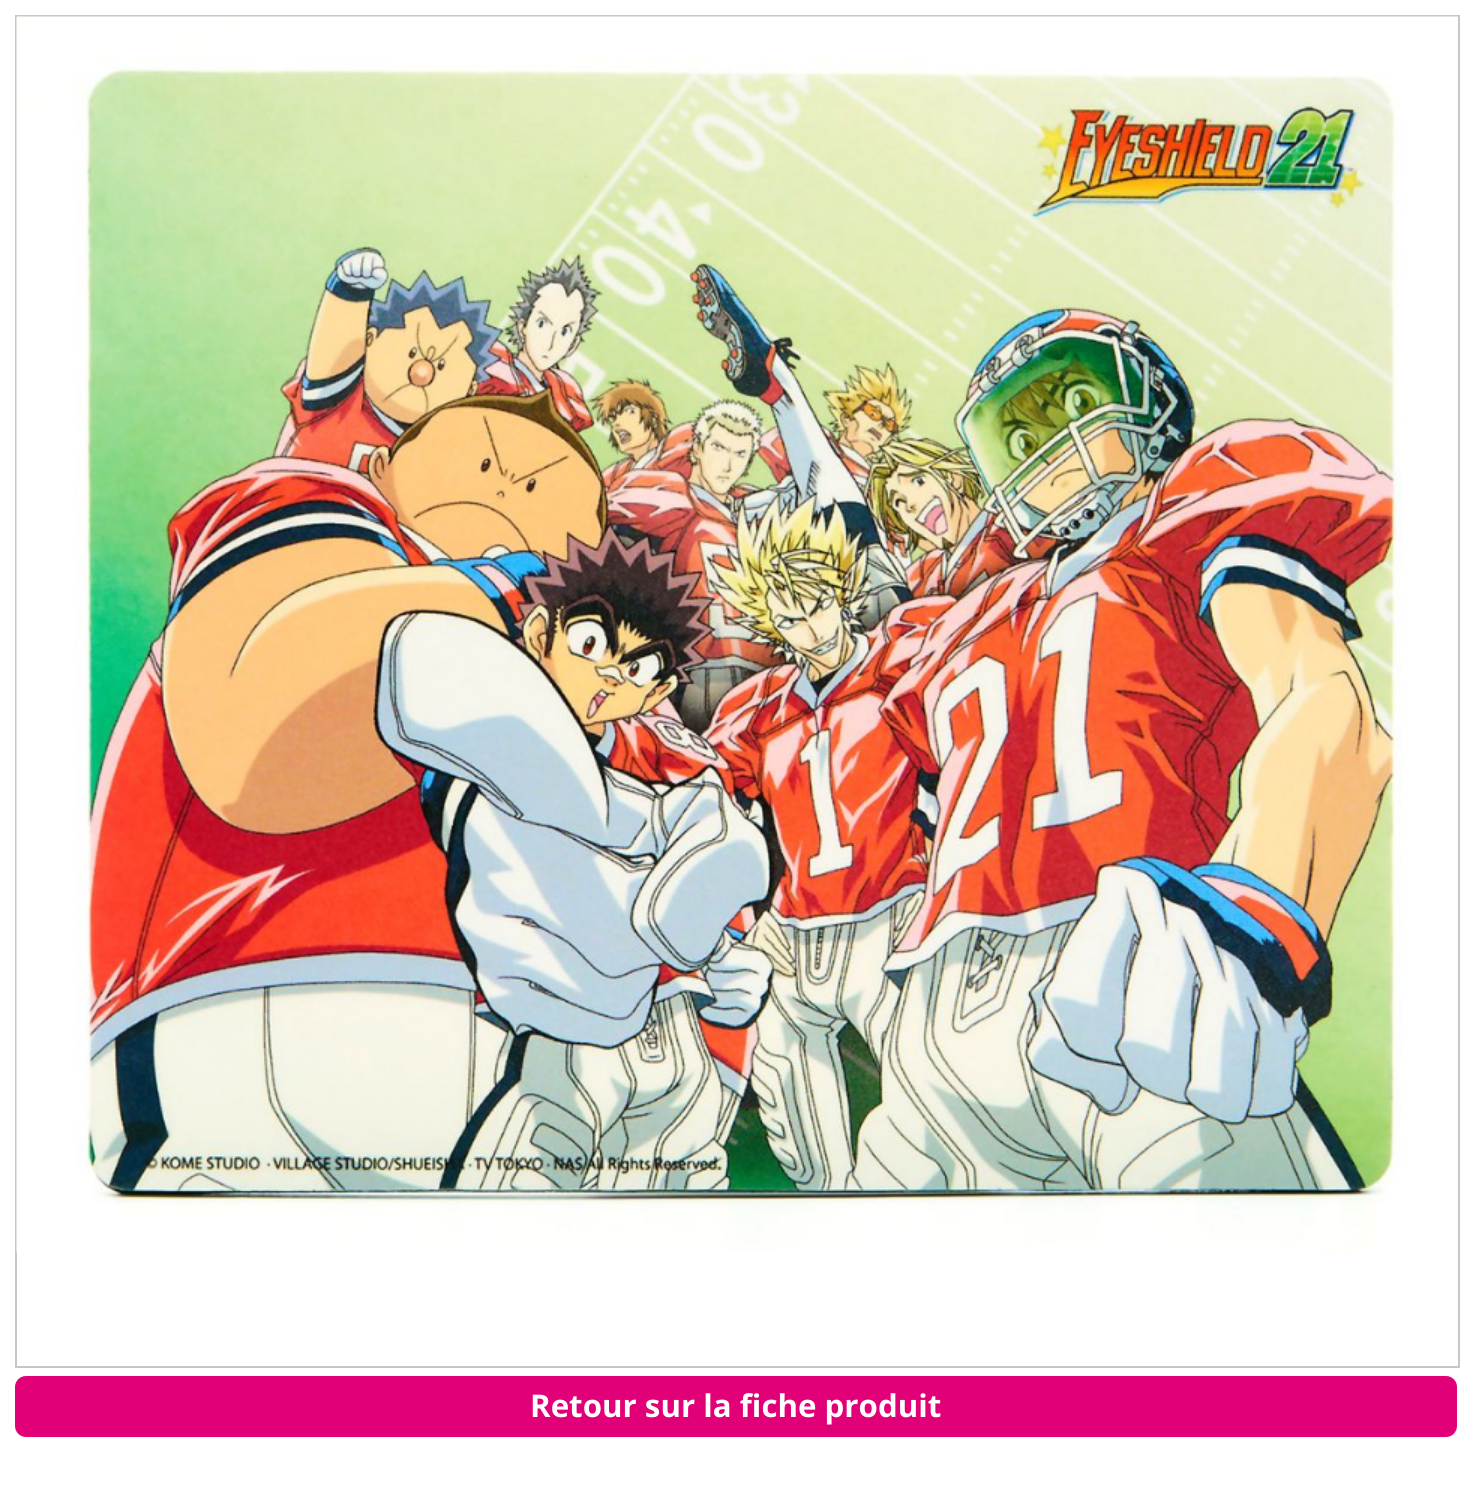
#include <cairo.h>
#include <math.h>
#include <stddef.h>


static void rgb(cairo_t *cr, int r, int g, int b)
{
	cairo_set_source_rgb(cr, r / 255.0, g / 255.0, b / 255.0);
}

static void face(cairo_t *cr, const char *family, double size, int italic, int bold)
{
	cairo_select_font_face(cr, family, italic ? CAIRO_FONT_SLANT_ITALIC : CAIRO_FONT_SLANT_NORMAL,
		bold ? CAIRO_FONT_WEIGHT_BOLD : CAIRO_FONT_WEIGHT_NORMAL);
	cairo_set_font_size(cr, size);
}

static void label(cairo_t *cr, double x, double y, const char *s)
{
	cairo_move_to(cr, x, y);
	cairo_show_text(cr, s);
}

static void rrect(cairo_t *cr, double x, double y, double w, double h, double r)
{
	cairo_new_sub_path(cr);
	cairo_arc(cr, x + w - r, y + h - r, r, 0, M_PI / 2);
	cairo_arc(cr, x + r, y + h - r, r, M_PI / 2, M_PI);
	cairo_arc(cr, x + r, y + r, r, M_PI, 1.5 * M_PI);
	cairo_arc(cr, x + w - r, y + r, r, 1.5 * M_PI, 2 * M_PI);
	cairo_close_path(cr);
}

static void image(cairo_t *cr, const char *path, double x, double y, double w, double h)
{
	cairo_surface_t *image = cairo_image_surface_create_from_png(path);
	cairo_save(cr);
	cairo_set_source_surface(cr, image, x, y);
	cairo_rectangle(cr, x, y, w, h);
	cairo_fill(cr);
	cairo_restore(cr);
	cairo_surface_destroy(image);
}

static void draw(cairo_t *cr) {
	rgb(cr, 255, 255, 255);
	cairo_paint(cr);
	cairo_rectangle(cr, 16, 16, 1443, 1351);
	rgb(cr, 199, 199, 199);
	cairo_stroke(cr);
	image(cr, "image0.png", 16, 16, 1442, 1237);
	rgb(cr, 226, 0, 121);
	rrect(cr, 15, 1376, 1442, 61, 11);
	cairo_fill(cr);
	face(cr, "Open Sans", 31.25, 0, 1);
	rgb(cr, 255, 255, 255);
	label(cr, 530, 1417, "Retour sur la fiche produit");
}

int main(void) {
	cairo_surface_t *surface = cairo_image_surface_create(CAIRO_FORMAT_RGB24, 1471, 1485);
	cairo_t *cr = cairo_create(surface);
	cairo_font_options_t *options = cairo_font_options_create();
	cairo_font_options_set_hint_metrics(options, CAIRO_HINT_METRICS_OFF);
	cairo_font_options_set_hint_style(options, CAIRO_HINT_STYLE_NONE);
	cairo_set_font_options(cr, options);
	cairo_set_miter_limit(cr, 4);
	draw(cr);
	cairo_surface_write_to_png(surface, "render.png");
	cairo_font_options_destroy(options);
	cairo_destroy(cr);
	cairo_surface_destroy(surface);
	return 0;
}
